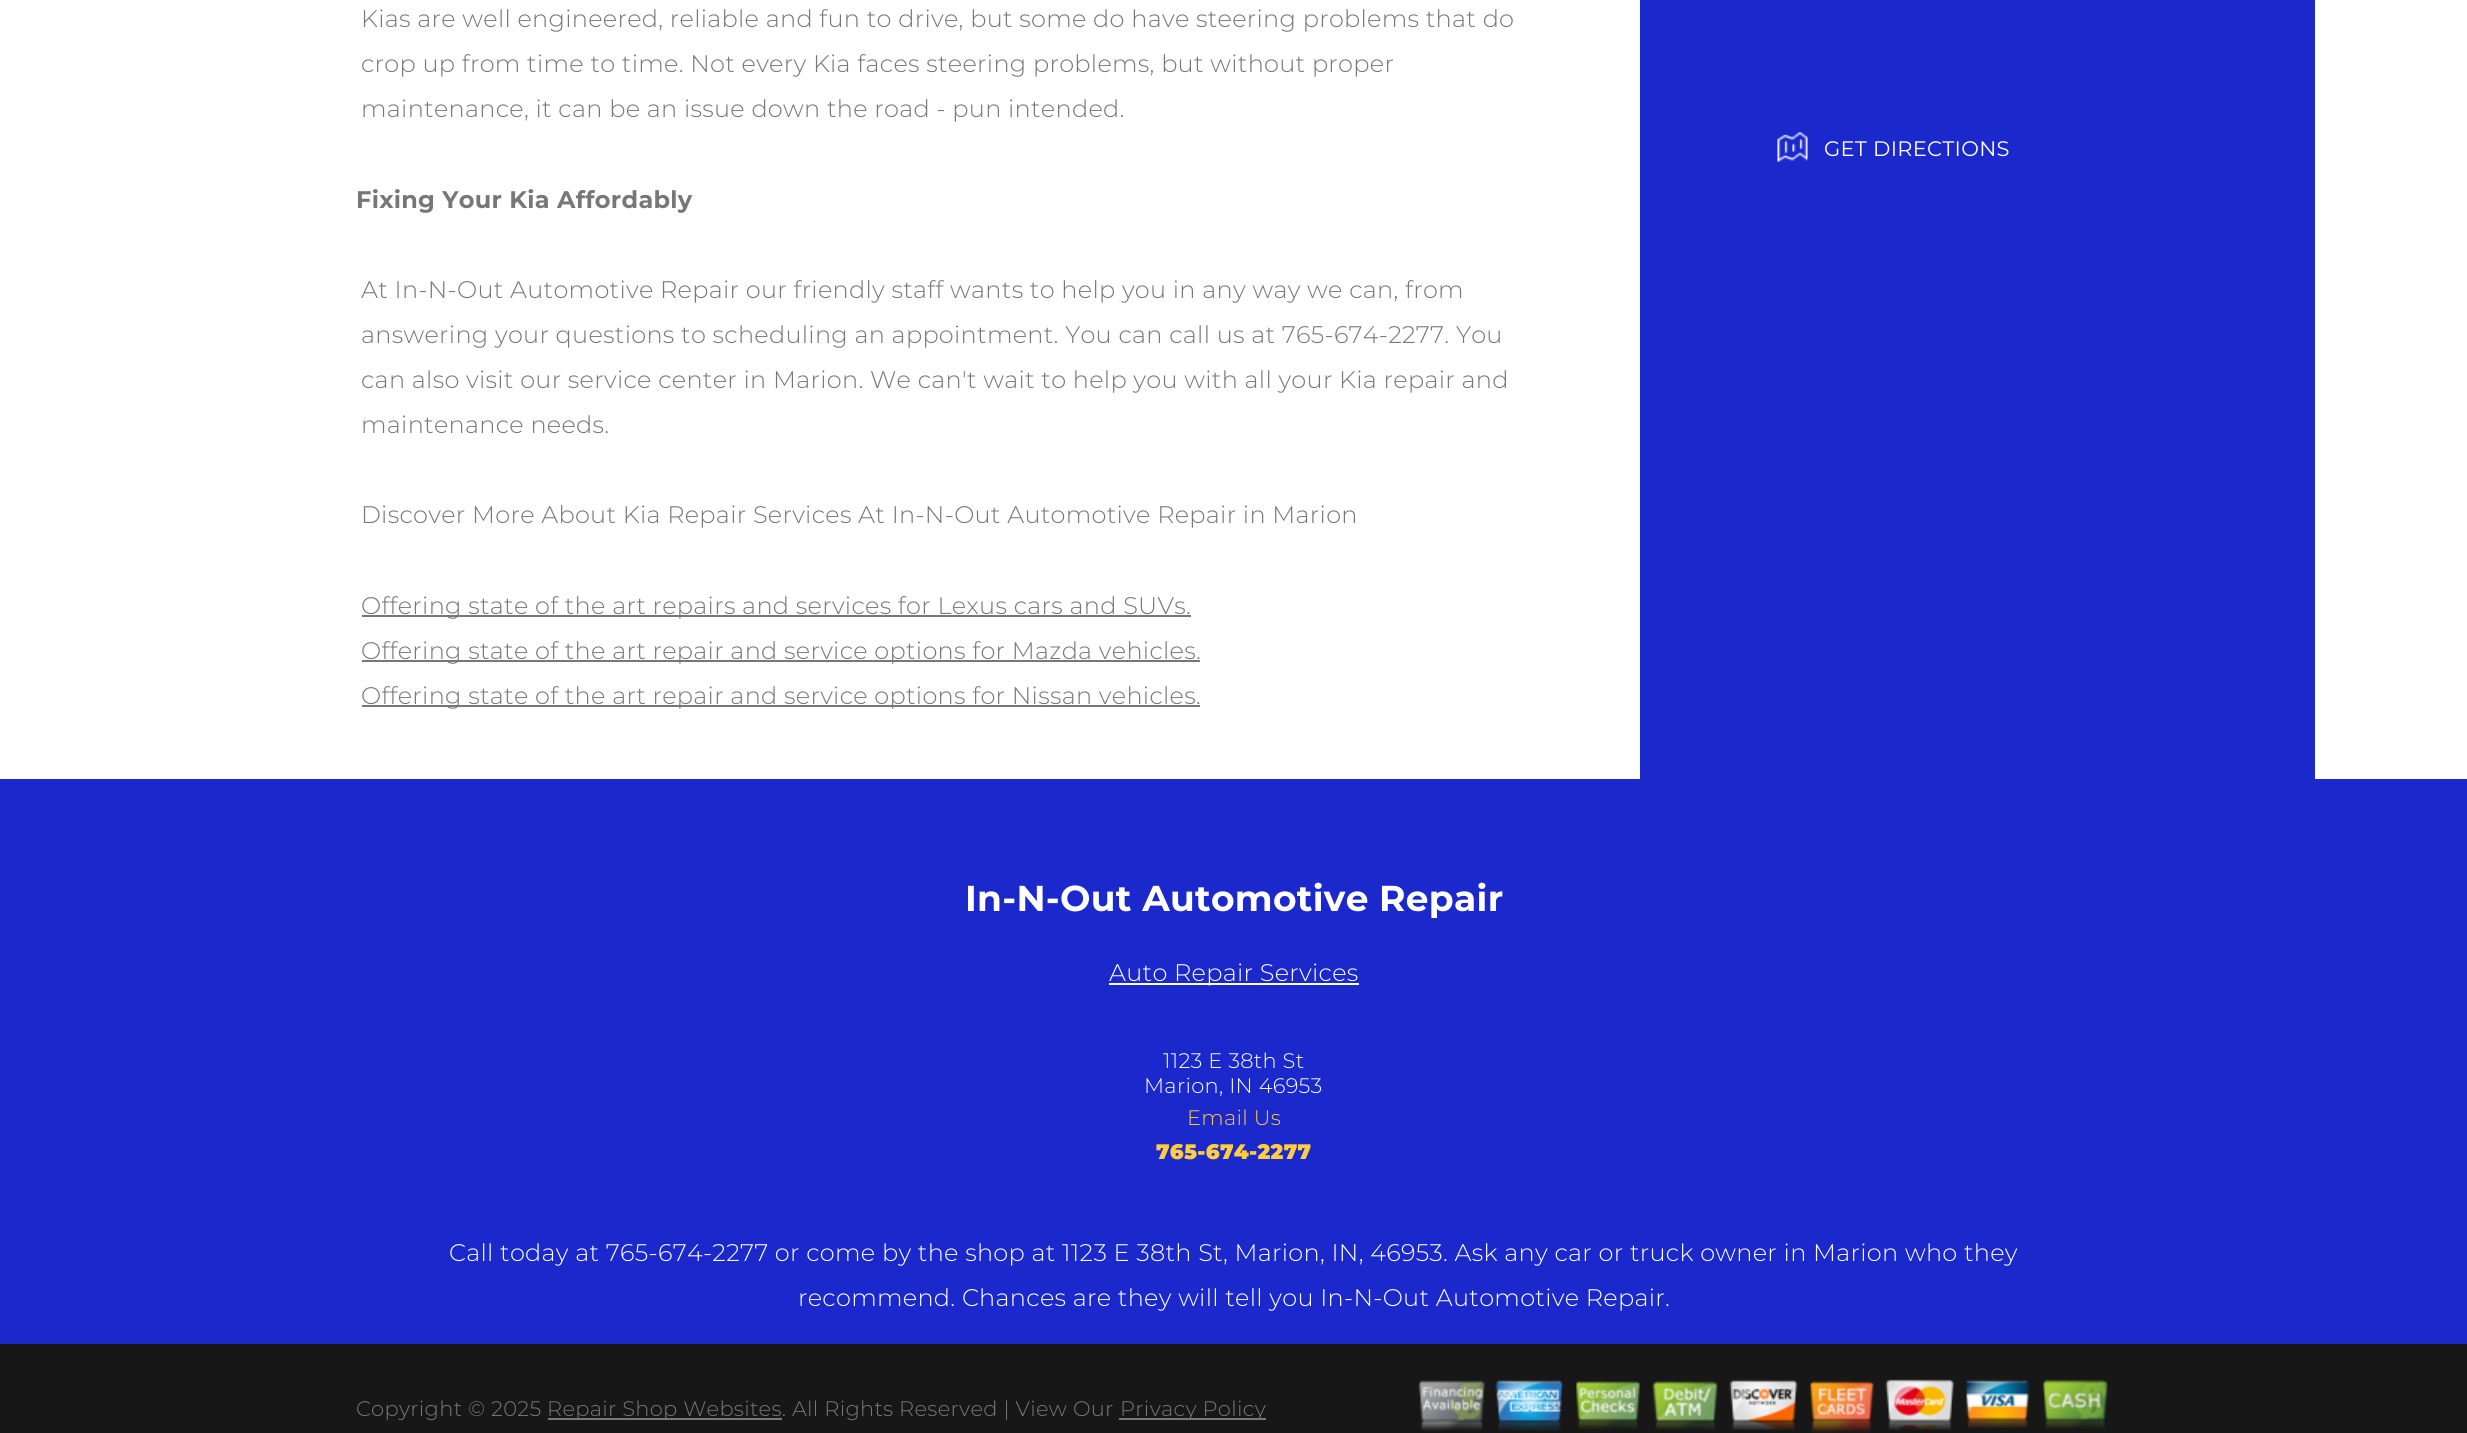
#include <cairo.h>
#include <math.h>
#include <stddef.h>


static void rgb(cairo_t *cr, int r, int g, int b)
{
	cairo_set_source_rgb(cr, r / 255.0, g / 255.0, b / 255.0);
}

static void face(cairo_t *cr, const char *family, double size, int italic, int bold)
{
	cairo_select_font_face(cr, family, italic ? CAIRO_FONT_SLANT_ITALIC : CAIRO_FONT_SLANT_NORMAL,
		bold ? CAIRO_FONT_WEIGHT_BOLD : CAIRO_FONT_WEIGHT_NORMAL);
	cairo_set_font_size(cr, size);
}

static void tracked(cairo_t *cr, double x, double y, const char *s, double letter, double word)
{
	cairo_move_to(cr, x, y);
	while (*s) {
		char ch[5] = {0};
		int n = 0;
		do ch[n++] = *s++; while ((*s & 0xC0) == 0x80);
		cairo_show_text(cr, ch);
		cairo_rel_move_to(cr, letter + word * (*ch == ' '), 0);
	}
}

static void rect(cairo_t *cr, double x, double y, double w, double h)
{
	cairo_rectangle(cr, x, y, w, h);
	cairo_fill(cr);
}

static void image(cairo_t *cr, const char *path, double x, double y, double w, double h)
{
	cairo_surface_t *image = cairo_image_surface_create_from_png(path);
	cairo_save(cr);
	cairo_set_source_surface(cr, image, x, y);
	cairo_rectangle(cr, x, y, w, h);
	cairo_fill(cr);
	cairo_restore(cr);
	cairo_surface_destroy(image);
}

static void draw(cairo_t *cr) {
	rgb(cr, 255, 255, 255);
	cairo_paint(cr);
	face(cr, "Montserrat Light", 24, 0, 0);
	rgb(cr, 119, 119, 119);
	tracked(cr, 361, 27, "Kias are well engineered, reliable and fun to drive, but some do have steering problems that do", 0.29, 0);
	tracked(cr, 361, 72, "crop up from time to time. Not every Kia faces steering problems, but without proper", 0.29, 0);
	tracked(cr, 361, 117, "maintenance, it can be an issue down the road - pun intended.", 0.29, 0);
	face(cr, "Montserrat", 24, 0, 1);
	tracked(cr, 356, 208, "Fixing Your Kia Affordably", 0.29, 0);
	face(cr, "Montserrat Light", 24, 0, 0);
	tracked(cr, 361, 298, "At In-N-Out Automotive Repair our friendly staff wants to help you in any way we can, from", 0.29, 0);
	tracked(cr, 361, 343, "answering your questions to scheduling an appointment. You can call us at 765-674-2277. You", 0.29, 0);
	tracked(cr, 361, 388, "can also visit our service center in Marion. We can't wait to help you with all your Kia repair and", 0.29, 0);
	tracked(cr, 361, 433, "maintenance needs.", 0.29, 0);
	tracked(cr, 361, 523, "Discover More About Kia Repair Services At In-N-Out Automotive Repair in Marion", 0.29, 0);
	rect(cr, 362, 615, 829, 2);
	tracked(cr, 361, 614, "Offering state of the art repairs and services for Lexus cars and SUVs.", 0.29, 0);
	rect(cr, 362, 660, 838, 2);
	tracked(cr, 361, 659, "Offering state of the art repair and service options for Mazda vehicles.", 0.29, 0);
	rect(cr, 362, 705, 838, 2);
	tracked(cr, 361, 704, "Offering state of the art repair and service options for Nissan vehicles.", 0.29, 0);
	rgb(cr, 26, 40, 204);
	rect(cr, 1640, 0, 675, 779);
	image(cr, "image0.png", 1777, 132, 31, 30);
	face(cr, "Montserrat", 21, 0, 0);
	rgb(cr, 255, 255, 255);
	tracked(cr, 1824, 156, "GET DIRECTIONS", 0.29, 0);
	rgb(cr, 26, 40, 204);
	rect(cr, 0, 779, 2467, 565);
	face(cr, "Montserrat", 36, 0, 1);
	rgb(cr, 255, 255, 255);
	tracked(cr, 965, 911, "In-N-Out Automotive Repair", 0.29, 0);
	rect(cr, 1109, 983, 250, 2);
	face(cr, "Montserrat Light", 24, 0, 0);
	tracked(cr, 1109, 981, "Auto Repair Services", 0.29, 0);
	face(cr, "Montserrat Light", 21, 0, 0);
	tracked(cr, 1163, 1068, "1123 E 38th St", 0.29, 0);
	tracked(cr, 1144, 1093, "Marion, IN 46953", 0.29, 0);
	rgb(cr, 255, 205, 64);
	tracked(cr, 1187, 1125, "Email Us", 0.29, 0);
	face(cr, "Montserrat Black", 21, 0, 0);
	tracked(cr, 1156, 1159, "765-674-2277", 0.29, 0);
	face(cr, "Montserrat Light", 24, 0, 0);
	rgb(cr, 255, 255, 255);
	tracked(cr, 449, 1261, "Call today at 765-674-2277 or come by the shop at 1123 E 38th St, Marion, IN, 46953. Ask any car or truck owner in Marion who they", 0.29, 0);
	tracked(cr, 798, 1306, "recommend. Chances are they will tell you In-N-Out Automotive Repair.", 0.29, 0);
	rgb(cr, 23, 23, 23);
	rect(cr, 0, 1344, 2467, 89);
	face(cr, "Montserrat Light", 21, 0, 0);
	rgb(cr, 119, 119, 119);
	tracked(cr, 356, 1416, "Copyright © 2025", 0.29, 0);
	rect(cr, 548, 1418, 234, 2);
	tracked(cr, 547, 1416, "Repair Shop Websites. All Rights Reserved | View Our", 0.29, 0);
	rect(cr, 1119, 1418, 147, 2);
	tracked(cr, 1120, 1416, "Privacy Policy", 0.29, 0);
	image(cr, "image1.png", 1418, 1380, 68, 51);
	image(cr, "image2.png", 1495, 1380, 69, 51);
	image(cr, "image3.png", 1576, 1381, 64, 49);
	image(cr, "image4.png", 1652, 1381, 66, 49);
	image(cr, "image5.png", 1729, 1379, 69, 51);
	image(cr, "image6.png", 1810, 1381, 64, 52);
	image(cr, "image7.png", 1885, 1379, 70, 51);
	image(cr, "image8.png", 1965, 1379, 65, 49);
	image(cr, "image9.png", 2042, 1379, 66, 50);
}

int main(void) {
	cairo_surface_t *surface = cairo_image_surface_create(CAIRO_FORMAT_RGB24, 2467, 1433);
	cairo_t *cr = cairo_create(surface);
	cairo_font_options_t *options = cairo_font_options_create();
	cairo_font_options_set_hint_metrics(options, CAIRO_HINT_METRICS_OFF);
	cairo_font_options_set_hint_style(options, CAIRO_HINT_STYLE_NONE);
	cairo_set_font_options(cr, options);
	cairo_set_miter_limit(cr, 4);
	draw(cr);
	cairo_surface_write_to_png(surface, "render.png");
	cairo_font_options_destroy(options);
	cairo_destroy(cr);
	cairo_surface_destroy(surface);
	return 0;
}
